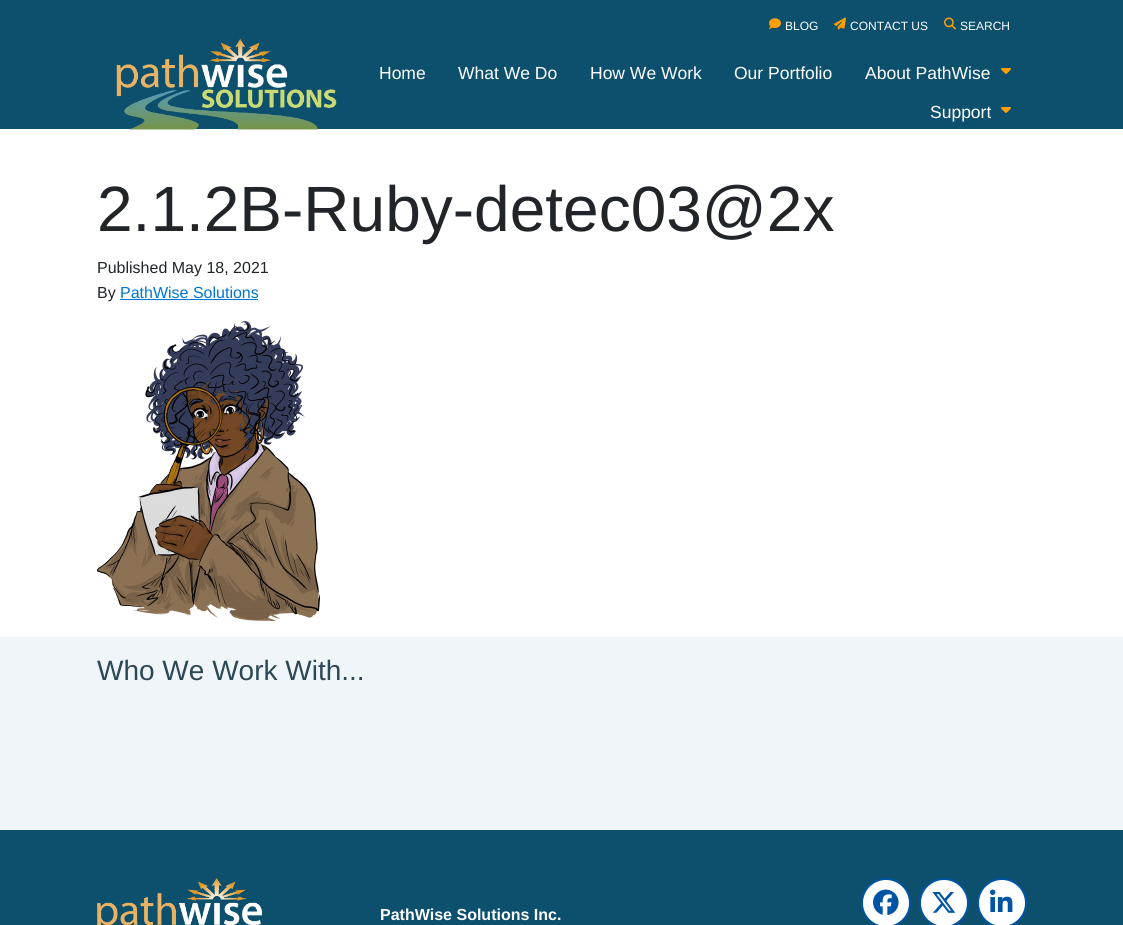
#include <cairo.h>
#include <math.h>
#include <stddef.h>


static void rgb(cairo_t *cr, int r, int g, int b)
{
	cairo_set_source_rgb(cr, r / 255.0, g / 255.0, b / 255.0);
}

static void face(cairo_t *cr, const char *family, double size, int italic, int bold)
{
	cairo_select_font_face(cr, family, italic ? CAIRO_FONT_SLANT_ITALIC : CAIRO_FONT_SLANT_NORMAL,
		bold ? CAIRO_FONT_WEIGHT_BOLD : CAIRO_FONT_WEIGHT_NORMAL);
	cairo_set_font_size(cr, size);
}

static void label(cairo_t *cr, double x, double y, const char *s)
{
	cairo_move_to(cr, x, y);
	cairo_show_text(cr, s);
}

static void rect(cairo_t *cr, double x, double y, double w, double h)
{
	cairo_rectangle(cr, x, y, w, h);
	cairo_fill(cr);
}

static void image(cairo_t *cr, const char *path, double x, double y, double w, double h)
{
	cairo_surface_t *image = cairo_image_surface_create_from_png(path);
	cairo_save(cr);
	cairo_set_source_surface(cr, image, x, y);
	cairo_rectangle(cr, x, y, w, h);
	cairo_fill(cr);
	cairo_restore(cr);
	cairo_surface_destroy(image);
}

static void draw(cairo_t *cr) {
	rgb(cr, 255, 255, 255);
	cairo_paint(cr);
	rgb(cr, 13, 80, 110);
	rect(cr, 0, 0, 1123, 129);
	image(cr, "image0.png", 116, 39, 221, 91);
	image(cr, "image1.png", 769, 18, 12, 11);
	face(cr, "Liberation Sans", 12, 0, 0);
	rgb(cr, 255, 255, 255);
	label(cr, 785, 30, "BLOG");
	image(cr, "image2.png", 834, 17, 12, 13);
	label(cr, 850, 30, "CONTACT US");
	image(cr, "image3.png", 944, 17, 12, 13);
	label(cr, 960, 30, "SEARCH");
	face(cr, "Liberation Sans", 17.5, 0, 0);
	label(cr, 379, 79, "Home");
	label(cr, 458, 79, "What We Do");
	label(cr, 590, 79, "How We Work");
	label(cr, 734, 79, "Our Portfolio");
	label(cr, 865, 79, "About PathWise");
	image(cr, "image4.png", 1001, 68, 10, 6);
	label(cr, 930, 118, "Support");
	image(cr, "image4.png", 1001, 107, 10, 6);
	face(cr, "Liberation Sans", 64, 0, 0);
	rgb(cr, 33, 37, 41);
	label(cr, 97, 231, "2.1.2B-Ruby-detec03@2x");
	face(cr, "Liberation Sans", 16, 0, 0);
	label(cr, 97, 273, "Published May 18, 2021");
	label(cr, 97, 298, "By");
	rgb(cr, 0, 117, 217);
	label(cr, 120, 298, "PathWise Solutions");
	rect(cr, 120, 299, 138, 1);
	image(cr, "image5.png", 97, 321, 223, 300);
	rgb(cr, 240, 245, 249);
	rect(cr, 0, 637, 1123, 193);
	face(cr, "Liberation Sans", 28, 0, 0);
	rgb(cr, 43, 72, 84);
	label(cr, 97, 680, "Who We Work With...");
	rgb(cr, 13, 80, 110);
	rect(cr, 0, 830, 1123, 95);
	image(cr, "image6.png", 97, 878, 166, 47);
	face(cr, "Liberation Sans", 16, 0, 1);
	rgb(cr, 255, 255, 255);
	label(cr, 380, 920, "PathWise Solutions Inc.");
	cairo_new_path(cr);
	cairo_arc(cr, 886, 903, 24, 0, 2 * M_PI);
	cairo_fill_preserve(cr);
	rgb(cr, 0, 84, 163);
	cairo_stroke(cr);
	image(cr, "image7.png", 873, 889, 26, 26);
	rgb(cr, 255, 255, 255);
	cairo_arc(cr, 944, 903, 24, 0, 2 * M_PI);
	cairo_fill_preserve(cr);
	rgb(cr, 0, 84, 163);
	cairo_stroke(cr);
	image(cr, "image8.png", 932, 892, 24, 21);
	rgb(cr, 255, 255, 255);
	cairo_arc(cr, 1002, 903, 24, 0, 2 * M_PI);
	cairo_fill_preserve(cr);
	rgb(cr, 0, 84, 163);
	cairo_stroke(cr);
	image(cr, "image9.png", 990, 889, 23, 23);
}

int main(void) {
	cairo_surface_t *surface = cairo_image_surface_create(CAIRO_FORMAT_RGB24, 1123, 925);
	cairo_t *cr = cairo_create(surface);
	cairo_font_options_t *options = cairo_font_options_create();
	cairo_font_options_set_hint_metrics(options, CAIRO_HINT_METRICS_OFF);
	cairo_font_options_set_hint_style(options, CAIRO_HINT_STYLE_NONE);
	cairo_set_font_options(cr, options);
	cairo_set_miter_limit(cr, 4);
	draw(cr);
	cairo_surface_write_to_png(surface, "render.png");
	cairo_font_options_destroy(options);
	cairo_destroy(cr);
	cairo_surface_destroy(surface);
	return 0;
}
